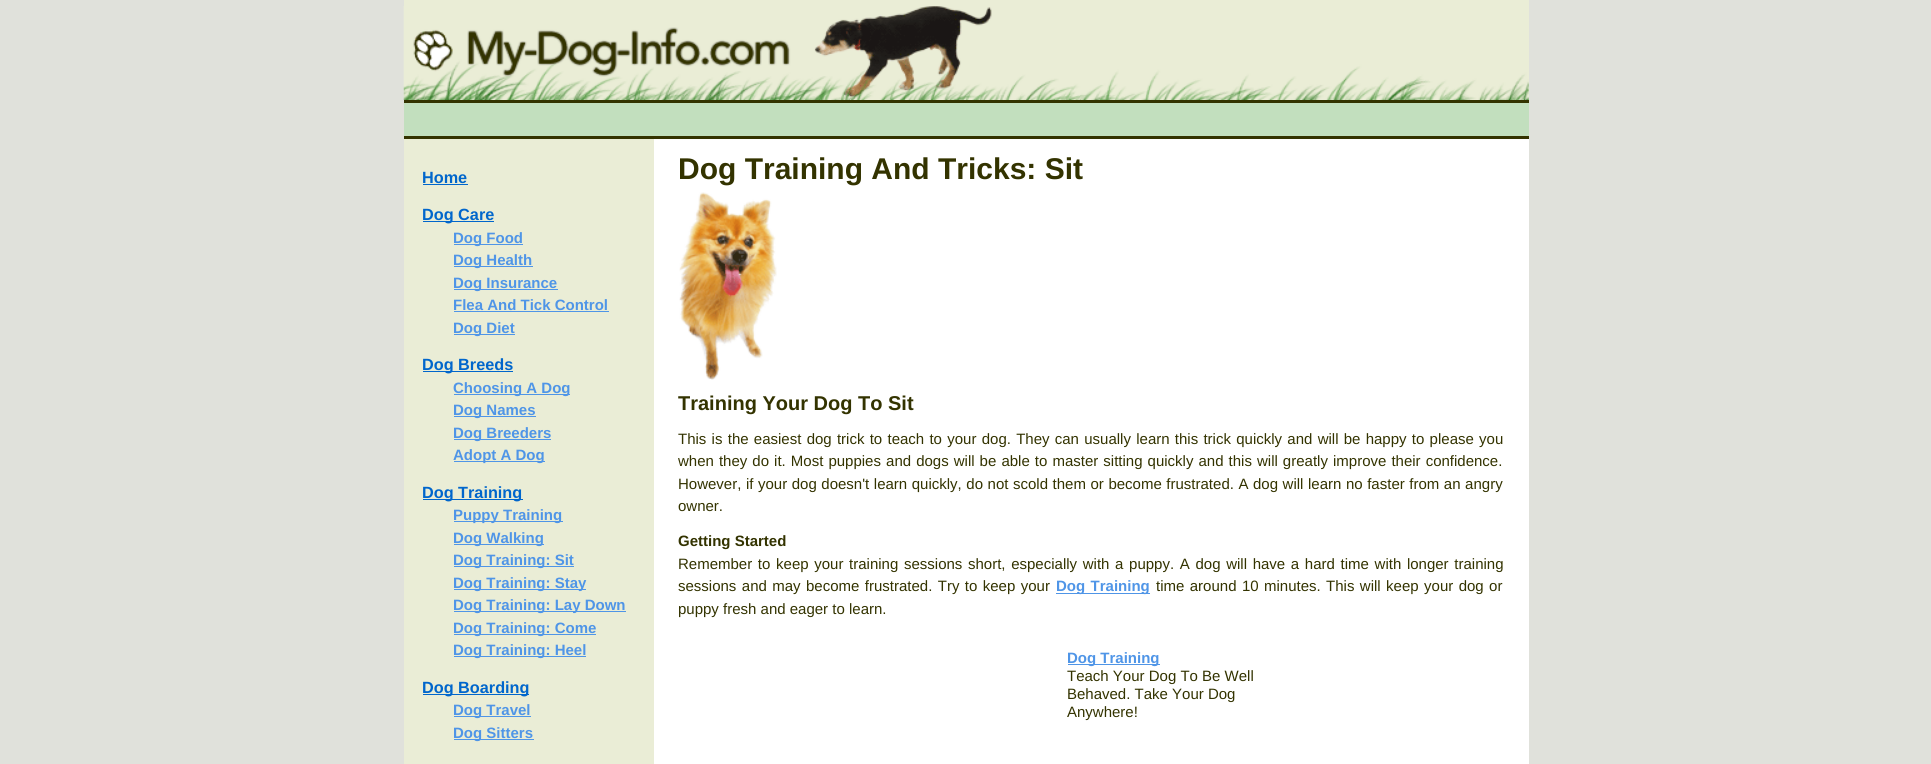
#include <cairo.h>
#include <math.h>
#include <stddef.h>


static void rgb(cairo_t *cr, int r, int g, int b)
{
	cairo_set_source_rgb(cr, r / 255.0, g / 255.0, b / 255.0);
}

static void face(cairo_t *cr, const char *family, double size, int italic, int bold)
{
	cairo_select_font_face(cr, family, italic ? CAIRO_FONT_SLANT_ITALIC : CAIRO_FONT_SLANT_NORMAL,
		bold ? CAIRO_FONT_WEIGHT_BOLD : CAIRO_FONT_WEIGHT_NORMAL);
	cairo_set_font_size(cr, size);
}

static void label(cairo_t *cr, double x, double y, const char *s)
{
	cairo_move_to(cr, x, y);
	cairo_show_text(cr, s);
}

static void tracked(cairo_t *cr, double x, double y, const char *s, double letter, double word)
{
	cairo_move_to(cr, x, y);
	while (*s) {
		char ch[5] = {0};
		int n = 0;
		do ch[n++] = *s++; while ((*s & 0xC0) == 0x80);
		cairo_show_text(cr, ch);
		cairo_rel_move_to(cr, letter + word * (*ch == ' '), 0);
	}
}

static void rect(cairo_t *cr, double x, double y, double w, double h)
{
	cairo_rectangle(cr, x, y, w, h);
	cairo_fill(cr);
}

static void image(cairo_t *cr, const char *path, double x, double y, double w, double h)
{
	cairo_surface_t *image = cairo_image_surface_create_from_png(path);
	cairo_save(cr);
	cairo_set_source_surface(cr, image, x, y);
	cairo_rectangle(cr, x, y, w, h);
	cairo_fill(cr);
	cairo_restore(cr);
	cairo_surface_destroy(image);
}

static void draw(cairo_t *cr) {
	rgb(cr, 224, 225, 219);
	cairo_paint(cr);
	rgb(cr, 234, 237, 214);
	rect(cr, 404, 0, 1125, 100);
	image(cr, "image0.png", 403, 6, 1126, 94);
	rgb(cr, 194, 223, 190);
	rect(cr, 404, 103, 1125, 33);
	rgb(cr, 51, 51, 0);
	rect(cr, 404, 100, 1125, 3);
	rect(cr, 404, 136, 1125, 3);
	rgb(cr, 255, 255, 255);
	rect(cr, 654, 139, 875, 625);
	rgb(cr, 234, 237, 214);
	rect(cr, 404, 139, 250, 625);
	face(cr, "Liberation Sans", 16.25, 0, 1);
	rgb(cr, 0, 102, 204);
	label(cr, 422, 183, "Home");
	rect(cr, 423, 184, 45, 1);
	rect(cr, 423, 221, 71, 1);
	label(cr, 422, 220, "Dog Care");
	rgb(cr, 79, 149, 231);
	rect(cr, 454, 244, 69, 1);
	face(cr, "Liberation Sans", 15, 0, 1);
	label(cr, 453, 243, "Dog Food");
	rect(cr, 454, 266, 79, 1);
	label(cr, 453, 265, "Dog Health");
	rect(cr, 454, 289, 104, 1);
	label(cr, 453, 288, "Dog Insurance");
	label(cr, 453, 310, "Flea And Tick Control");
	rect(cr, 454, 311, 155, 1);
	rect(cr, 454, 334, 61, 1);
	label(cr, 453, 333, "Dog Diet");
	rgb(cr, 0, 102, 204);
	rect(cr, 423, 371, 90, 1);
	face(cr, "Liberation Sans", 16.25, 0, 1);
	label(cr, 422, 370, "Dog Breeds");
	rgb(cr, 79, 149, 231);
	rect(cr, 454, 394, 116, 1);
	face(cr, "Liberation Sans", 15, 0, 1);
	label(cr, 453, 393, "Choosing A Dog");
	rect(cr, 454, 416, 82, 1);
	label(cr, 453, 415, "Dog Names");
	rect(cr, 454, 439, 97, 1);
	label(cr, 453, 438, "Dog Breeders");
	rect(cr, 454, 461, 91, 1);
	label(cr, 453, 460, "Adopt A Dog");
	rgb(cr, 0, 102, 204);
	rect(cr, 423, 499, 100, 1);
	face(cr, "Liberation Sans", 16.25, 0, 1);
	label(cr, 422, 498, "Dog Training");
	rgb(cr, 79, 149, 231);
	rect(cr, 454, 521, 109, 1);
	face(cr, "Liberation Sans", 15, 0, 1);
	label(cr, 453, 520, "Puppy Training");
	rect(cr, 454, 544, 90, 1);
	label(cr, 453, 543, "Dog Walking");
	rect(cr, 454, 566, 120, 1);
	label(cr, 453, 565, "Dog Training: Sit");
	rect(cr, 454, 589, 132, 1);
	label(cr, 453, 588, "Dog Training: Stay");
	rect(cr, 454, 611, 172, 1);
	label(cr, 453, 610, "Dog Training: Lay Down");
	rect(cr, 454, 634, 142, 1);
	label(cr, 453, 633, "Dog Training: Come");
	rect(cr, 454, 656, 132, 1);
	label(cr, 453, 655, "Dog Training: Heel");
	rgb(cr, 0, 102, 204);
	rect(cr, 423, 694, 106, 1);
	face(cr, "Liberation Sans", 16.25, 0, 1);
	label(cr, 422, 693, "Dog Boarding");
	rgb(cr, 79, 149, 231);
	rect(cr, 454, 716, 77, 1);
	face(cr, "Liberation Sans", 15, 0, 1);
	label(cr, 453, 715, "Dog Travel");
	rect(cr, 454, 739, 80, 1);
	label(cr, 453, 738, "Dog Sitters");
	face(cr, "Liberation Sans", 30, 0, 1);
	rgb(cr, 51, 51, 0);
	label(cr, 678, 179, "Dog Training And Tricks: Sit");
	image(cr, "image1.png", 679, 192, 98, 188);
	face(cr, "Liberation Sans", 20, 0, 1);
	label(cr, 678, 410, "Training Your Dog To Sit");
	face(cr, "Liberation Sans", 15, 0, 0);
	tracked(cr, 678, 444, "This is the easiest dog trick to teach to your dog. They can usually learn this trick quickly and will be happy to please you", 0, 1.1);
	tracked(cr, 678, 466, "when they do it. Most puppies and dogs will be able to master sitting quickly and this will greatly improve their confidence.", 0, 0.9);
	tracked(cr, 678, 489, "However, if your dog doesn't learn quickly, do not scold them or become frustrated. A dog will learn no faster from an angry", 0, 0.4);
	label(cr, 678, 511, "owner.");
	face(cr, "Liberation Sans", 15, 0, 1);
	label(cr, 678, 546, "Getting Started");
	face(cr, "Liberation Sans", 15, 0, 0);
	tracked(cr, 678, 569, "Remember to keep your training sessions short, especially with a puppy. A dog will have a hard time with longer training", 0, 1.5);
	tracked(cr, 678, 591, "sessions and may become frustrated. Try to keep your", 0, 1.25);
	rgb(cr, 79, 149, 231);
	rect(cr, 1056, 593, 94, 1);
	face(cr, "Liberation Sans", 15, 0, 1);
	tracked(cr, 1056, 591, "Dog Training", 0, 1.25);
	face(cr, "Liberation Sans", 15, 0, 0);
	rgb(cr, 51, 51, 0);
	tracked(cr, 1156, 591, "time around 10 minutes. This will keep your dog or", 0, 1.25);
	label(cr, 678, 614, "puppy fresh and eager to learn.");
	rgb(cr, 79, 149, 231);
	rect(cr, 1068, 664, 92, 1);
	face(cr, "Liberation Sans", 15, 0, 1);
	label(cr, 1067, 663, "Dog Training");
	face(cr, "Liberation Sans", 15, 0, 0);
	rgb(cr, 51, 51, 0);
	label(cr, 1067, 681, "Teach Your Dog To Be Well");
	label(cr, 1067, 699, "Behaved. Take Your Dog");
	label(cr, 1067, 717, "Anywhere!");
}

int main(void) {
	cairo_surface_t *surface = cairo_image_surface_create(CAIRO_FORMAT_RGB24, 1931, 764);
	cairo_t *cr = cairo_create(surface);
	cairo_font_options_t *options = cairo_font_options_create();
	cairo_font_options_set_hint_metrics(options, CAIRO_HINT_METRICS_OFF);
	cairo_font_options_set_hint_style(options, CAIRO_HINT_STYLE_NONE);
	cairo_set_font_options(cr, options);
	cairo_set_miter_limit(cr, 4);
	draw(cr);
	cairo_surface_write_to_png(surface, "render.png");
	cairo_font_options_destroy(options);
	cairo_destroy(cr);
	cairo_surface_destroy(surface);
	return 0;
}
